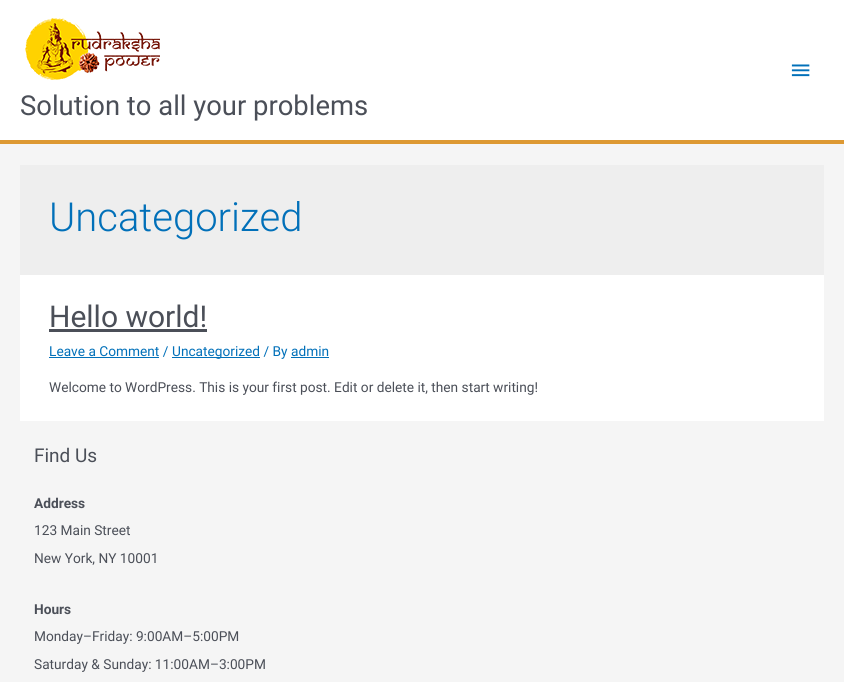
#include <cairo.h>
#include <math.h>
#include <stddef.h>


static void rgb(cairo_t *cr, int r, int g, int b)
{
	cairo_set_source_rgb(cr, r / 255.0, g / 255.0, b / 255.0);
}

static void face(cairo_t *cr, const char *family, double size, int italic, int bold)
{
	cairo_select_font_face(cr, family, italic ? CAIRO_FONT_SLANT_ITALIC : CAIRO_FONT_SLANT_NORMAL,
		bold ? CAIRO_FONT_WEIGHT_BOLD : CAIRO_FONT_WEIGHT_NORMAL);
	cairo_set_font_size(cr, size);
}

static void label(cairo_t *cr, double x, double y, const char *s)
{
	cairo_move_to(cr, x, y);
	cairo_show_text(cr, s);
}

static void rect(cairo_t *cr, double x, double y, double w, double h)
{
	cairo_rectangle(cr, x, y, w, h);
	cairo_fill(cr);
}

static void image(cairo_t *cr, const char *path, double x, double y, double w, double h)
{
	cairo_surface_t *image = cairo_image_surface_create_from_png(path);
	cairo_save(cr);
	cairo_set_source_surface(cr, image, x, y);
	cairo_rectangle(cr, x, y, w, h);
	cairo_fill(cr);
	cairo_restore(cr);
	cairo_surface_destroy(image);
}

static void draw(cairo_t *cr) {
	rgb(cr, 245, 245, 245);
	cairo_paint(cr);
	rgb(cr, 255, 255, 255);
	rect(cr, 0, 0, 844, 140);
	rgb(cr, 221, 153, 51);
	rect(cr, 0, 140, 844, 4);
	image(cr, "image0.png", 791, 64, 19, 13);
	image(cr, "image1.png", 25, 18, 135, 62);
	face(cr, "Roboto", 27.4, 0, 0);
	rgb(cr, 75, 79, 88);
	label(cr, 20, 115, "Solution to all your problems");
	rgb(cr, 238, 238, 238);
	rect(cr, 20, 165, 804, 110);
	face(cr, "Roboto Light", 40, 0, 0);
	rgb(cr, 1, 112, 185);
	label(cr, 49, 231, "Uncategorized");
	rgb(cr, 255, 255, 255);
	rect(cr, 20, 275, 804, 146);
	face(cr, "Roboto", 30, 0, 0);
	rgb(cr, 75, 79, 88);
	label(cr, 49, 327, "Hello world!");
	rect(cr, 49, 329, 158, 3);
	face(cr, "Roboto", 13.7, 0, 0);
	rgb(cr, 1, 112, 185);
	label(cr, 49, 356, "Leave a Comment /");
	rect(cr, 49, 357, 110, 1);
	rect(cr, 172, 357, 88, 1);
	label(cr, 172, 356, "Uncategorized / By admin");
	rect(cr, 291, 357, 38, 1);
	rgb(cr, 75, 79, 88);
	label(cr, 49, 392, "Welcome to WordPress. This is your first post. Edit or delete it, then start writing!");
	face(cr, "Roboto", 19, 0, 0);
	label(cr, 34, 462, "Find Us");
	face(cr, "Roboto", 13.7, 0, 1);
	label(cr, 34, 508, "Address");
	face(cr, "Roboto", 13.7, 0, 0);
	label(cr, 34, 535, "123 Main Street");
	label(cr, 34, 563, "New York, NY 10001");
	face(cr, "Roboto", 13.7, 0, 1);
	label(cr, 34, 614, "Hours");
	face(cr, "Roboto", 13.7, 0, 0);
	label(cr, 34, 641, "Monday–Friday: 9:00AM–5:00PM");
	label(cr, 34, 669, "Saturday & Sunday: 11:00AM–3:00PM");
}

int main(void) {
	cairo_surface_t *surface = cairo_image_surface_create(CAIRO_FORMAT_RGB24, 844, 682);
	cairo_t *cr = cairo_create(surface);
	cairo_font_options_t *options = cairo_font_options_create();
	cairo_font_options_set_hint_metrics(options, CAIRO_HINT_METRICS_OFF);
	cairo_font_options_set_hint_style(options, CAIRO_HINT_STYLE_NONE);
	cairo_set_font_options(cr, options);
	cairo_set_miter_limit(cr, 4);
	draw(cr);
	cairo_surface_write_to_png(surface, "render.png");
	cairo_font_options_destroy(options);
	cairo_destroy(cr);
	cairo_surface_destroy(surface);
	return 0;
}
